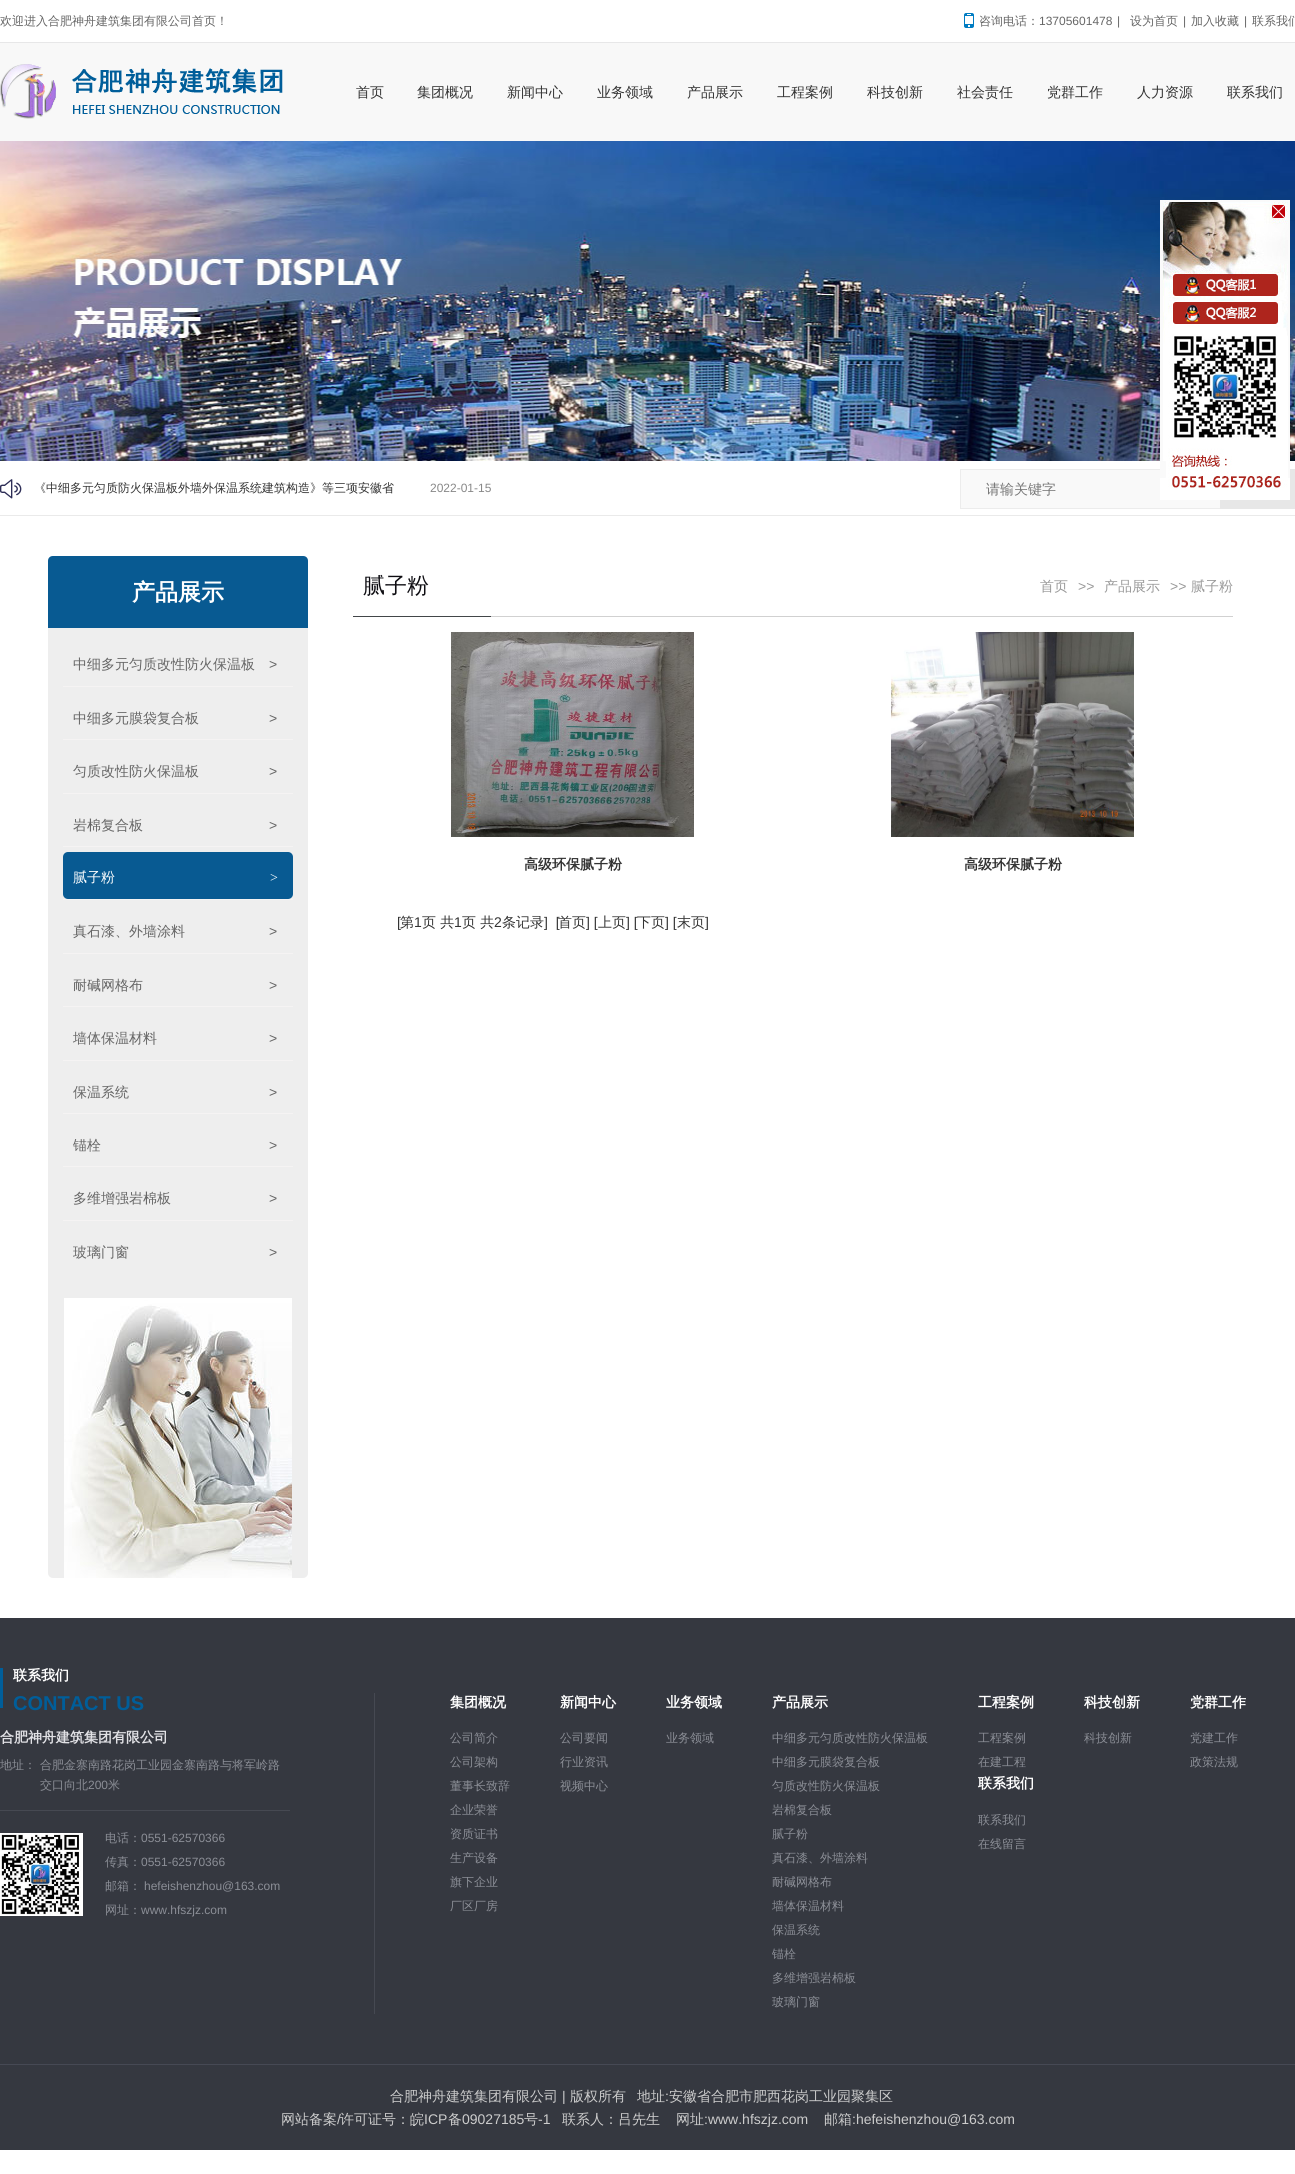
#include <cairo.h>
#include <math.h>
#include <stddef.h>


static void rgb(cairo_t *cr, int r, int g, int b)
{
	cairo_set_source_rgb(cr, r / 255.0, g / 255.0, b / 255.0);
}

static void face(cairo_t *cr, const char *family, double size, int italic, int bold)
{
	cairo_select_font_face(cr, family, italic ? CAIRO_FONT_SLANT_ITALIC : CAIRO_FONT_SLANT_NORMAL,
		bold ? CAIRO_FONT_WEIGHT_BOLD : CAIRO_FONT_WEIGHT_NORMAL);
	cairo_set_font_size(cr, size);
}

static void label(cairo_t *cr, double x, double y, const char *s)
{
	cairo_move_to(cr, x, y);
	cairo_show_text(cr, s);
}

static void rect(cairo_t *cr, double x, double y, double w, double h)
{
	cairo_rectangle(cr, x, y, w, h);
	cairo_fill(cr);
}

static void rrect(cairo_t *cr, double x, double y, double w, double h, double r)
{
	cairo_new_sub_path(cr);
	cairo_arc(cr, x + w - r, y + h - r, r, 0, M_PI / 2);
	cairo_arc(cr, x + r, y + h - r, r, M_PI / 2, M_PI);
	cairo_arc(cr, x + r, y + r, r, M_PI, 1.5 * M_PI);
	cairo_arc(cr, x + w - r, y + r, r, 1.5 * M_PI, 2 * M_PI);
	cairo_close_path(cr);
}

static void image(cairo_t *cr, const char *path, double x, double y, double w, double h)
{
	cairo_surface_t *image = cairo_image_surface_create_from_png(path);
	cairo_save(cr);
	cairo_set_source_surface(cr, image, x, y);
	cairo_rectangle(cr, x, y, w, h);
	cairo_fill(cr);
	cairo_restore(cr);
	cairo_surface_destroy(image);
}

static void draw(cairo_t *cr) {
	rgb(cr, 255, 255, 255);
	cairo_paint(cr);
	rgb(cr, 231, 231, 232);
	rect(cr, 0, 42, 1295, 1);
	face(cr, "WenQuanYi Zen Hei Medium", 12, 0, 0);
	rgb(cr, 102, 102, 102);
	label(cr, 0, 25, "欢迎进入合肥神舟建筑集团有限公司首页！");
	image(cr, "image0.png", 964, 13, 10, 15);
	label(cr, 979, 25, "咨询电话：");
	face(cr, "Liberation Sans", 12, 0, 0);
	label(cr, 1039, 25, "13705601478");
	label(cr, 1117, 25, "|");
	face(cr, "WenQuanYi Zen Hei Medium", 12, 0, 0);
	label(cr, 1130, 25, "设为首页");
	face(cr, "Liberation Sans", 12, 0, 0);
	label(cr, 1183, 25, "|");
	face(cr, "WenQuanYi Zen Hei Medium", 12, 0, 0);
	label(cr, 1191, 25, "加入收藏");
	face(cr, "Liberation Sans", 12, 0, 0);
	label(cr, 1244, 25, "|");
	face(cr, "WenQuanYi Zen Hei Medium", 12, 0, 0);
	label(cr, 1252, 25, "联系我们");
	rgb(cr, 248, 248, 248);
	rect(cr, 0, 43, 1295, 98);
	image(cr, "image1.png", 0, 64, 283, 55);
	face(cr, "WenQuanYi Zen Hei Medium", 14, 0, 0);
	rgb(cr, 51, 51, 51);
	label(cr, 356, 97, "首页");
	label(cr, 417, 97, "集团概况");
	label(cr, 507, 97, "新闻中心");
	label(cr, 597, 97, "业务领域");
	label(cr, 687, 97, "产品展示");
	label(cr, 777, 97, "工程案例");
	label(cr, 867, 97, "科技创新");
	label(cr, 957, 97, "社会责任");
	label(cr, 1047, 97, "党群工作");
	label(cr, 1137, 97, "人力资源");
	label(cr, 1227, 97, "联系我们");
	image(cr, "image2.png", 0, 141, 1295, 320);
	rgb(cr, 234, 234, 234);
	rect(cr, 0, 515, 1295, 1);
	image(cr, "image3.png", 0, 479, 22, 20);
	face(cr, "WenQuanYi Zen Hei Medium", 12, 0, 0);
	rgb(cr, 51, 51, 51);
	label(cr, 34, 492, "《中细多元匀质防火保温板外墙外保温系统建筑构造》等三项安徽省");
	face(cr, "Liberation Sans", 12, 0, 0);
	rgb(cr, 136, 136, 136);
	label(cr, 430, 492, "2022-01-15");
	rgb(cr, 249, 249, 249);
	rect(cr, 961, 470, 259, 38);
	cairo_rectangle(cr, 960.5, 469.5, 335, 39);
	rgb(cr, 236, 236, 236);
	cairo_set_line_width(cr, 1);
	cairo_stroke(cr);
	face(cr, "WenQuanYi Zen Hei Medium", 14, 0, 0);
	rgb(cr, 117, 117, 117);
	label(cr, 986, 494, "请输关键字");
	rgb(cr, 231, 231, 231);
	rect(cr, 1220, 469, 75, 40);
	image(cr, "image4.png", 1160, 200, 130, 300);
	rgb(cr, 238, 238, 238);
	rrect(cr, 48, 556, 260, 1022, 5);
	cairo_fill(cr);
	rgb(cr, 8, 90, 146);
	cairo_new_path(cr);
	cairo_move_to(cr, 53, 556);
	cairo_line_to(cr, 303, 556);
	cairo_curve_to(cr, 306, 556, 308, 558, 308, 561);
	cairo_line_to(cr, 308, 628);
	cairo_line_to(cr, 48, 628);
	cairo_line_to(cr, 48, 561);
	cairo_curve_to(cr, 48, 558, 50, 556, 53, 556);
	cairo_close_path(cr);
	cairo_fill(cr);
	face(cr, "WenQuanYi Zen Hei", 23, 0, 1);
	rgb(cr, 255, 255, 255);
	label(cr, 132, 600, "产品展示");
	rgb(cr, 245, 243, 243);
	rect(cr, 63, 686, 230, 1);
	face(cr, "WenQuanYi Zen Hei Medium", 14, 0, 0);
	rgb(cr, 102, 102, 102);
	label(cr, 73, 669, "中细多元匀质改性防火保温板");
	face(cr, "Liberation Sans", 14, 0, 0);
	label(cr, 269, 669, ">");
	rgb(cr, 245, 243, 243);
	rect(cr, 63, 739, 230, 1);
	face(cr, "WenQuanYi Zen Hei Medium", 14, 0, 0);
	rgb(cr, 102, 102, 102);
	label(cr, 73, 723, "中细多元膜袋复合板");
	face(cr, "Liberation Sans", 14, 0, 0);
	label(cr, 269, 723, ">");
	rgb(cr, 245, 243, 243);
	rect(cr, 63, 793, 230, 1);
	face(cr, "WenQuanYi Zen Hei Medium", 14, 0, 0);
	rgb(cr, 102, 102, 102);
	label(cr, 73, 776, "匀质改性防火保温板");
	face(cr, "Liberation Sans", 14, 0, 0);
	label(cr, 269, 776, ">");
	rgb(cr, 245, 243, 243);
	rect(cr, 63, 846, 230, 1);
	face(cr, "WenQuanYi Zen Hei Medium", 14, 0, 0);
	rgb(cr, 102, 102, 102);
	label(cr, 73, 830, "岩棉复合板");
	face(cr, "Liberation Sans", 14, 0, 0);
	label(cr, 269, 830, ">");
	rgb(cr, 245, 243, 243);
	rect(cr, 63, 899, 230, 1);
	rgb(cr, 8, 90, 146);
	rrect(cr, 63, 852, 230, 47, 5);
	cairo_fill(cr);
	face(cr, "WenQuanYi Zen Hei Medium", 14, 0, 0);
	rgb(cr, 255, 255, 255);
	label(cr, 73, 882, "腻子粉");
	face(cr, "Liberation Serif", 14, 0, 0);
	label(cr, 270, 882, ">");
	rgb(cr, 245, 243, 243);
	rect(cr, 63, 953, 230, 1);
	face(cr, "WenQuanYi Zen Hei Medium", 14, 0, 0);
	rgb(cr, 102, 102, 102);
	label(cr, 73, 936, "真石漆、外墙涂料");
	face(cr, "Liberation Sans", 14, 0, 0);
	label(cr, 269, 936, ">");
	rgb(cr, 245, 243, 243);
	rect(cr, 63, 1006, 230, 1);
	face(cr, "WenQuanYi Zen Hei Medium", 14, 0, 0);
	rgb(cr, 102, 102, 102);
	label(cr, 73, 990, "耐碱网格布");
	face(cr, "Liberation Sans", 14, 0, 0);
	label(cr, 269, 990, ">");
	rgb(cr, 245, 243, 243);
	rect(cr, 63, 1060, 230, 1);
	face(cr, "WenQuanYi Zen Hei Medium", 14, 0, 0);
	rgb(cr, 102, 102, 102);
	label(cr, 73, 1043, "墙体保温材料");
	face(cr, "Liberation Sans", 14, 0, 0);
	label(cr, 269, 1043, ">");
	rgb(cr, 245, 243, 243);
	rect(cr, 63, 1113, 230, 1);
	face(cr, "WenQuanYi Zen Hei Medium", 14, 0, 0);
	rgb(cr, 102, 102, 102);
	label(cr, 73, 1097, "保温系统");
	face(cr, "Liberation Sans", 14, 0, 0);
	label(cr, 269, 1097, ">");
	rgb(cr, 245, 243, 243);
	rect(cr, 63, 1166, 230, 1);
	face(cr, "WenQuanYi Zen Hei Medium", 14, 0, 0);
	rgb(cr, 102, 102, 102);
	label(cr, 73, 1150, "锚栓");
	face(cr, "Liberation Sans", 14, 0, 0);
	label(cr, 269, 1150, ">");
	rgb(cr, 245, 243, 243);
	rect(cr, 63, 1220, 230, 1);
	face(cr, "WenQuanYi Zen Hei Medium", 14, 0, 0);
	rgb(cr, 102, 102, 102);
	label(cr, 73, 1203, "多维增强岩棉板");
	face(cr, "Liberation Sans", 14, 0, 0);
	label(cr, 269, 1203, ">");
	face(cr, "WenQuanYi Zen Hei Medium", 14, 0, 0);
	label(cr, 73, 1257, "玻璃门窗");
	face(cr, "Liberation Sans", 14, 0, 0);
	label(cr, 269, 1257, ">");
	image(cr, "image5.png", 64, 1298, 228, 280);
	rgb(cr, 209, 209, 209);
	rect(cr, 491, 616, 742, 1);
	face(cr, "WenQuanYi Zen Hei Medium", 22, 0, 0);
	rgb(cr, 14, 13, 18);
	label(cr, 363, 593, "腻子粉");
	face(cr, "WenQuanYi Zen Hei Medium", 14, 0, 0);
	rgb(cr, 153, 153, 153);
	label(cr, 1040, 591, "首页");
	face(cr, "Liberation Sans", 14, 0, 0);
	label(cr, 1078, 591, ">>");
	face(cr, "WenQuanYi Zen Hei Medium", 14, 0, 0);
	label(cr, 1104, 591, "产品展示");
	face(cr, "Liberation Sans", 14, 0, 0);
	label(cr, 1170, 591, ">>");
	face(cr, "WenQuanYi Zen Hei Medium", 14, 0, 0);
	label(cr, 1191, 591, "腻子粉");
	rgb(cr, 66, 70, 73);
	rect(cr, 353, 616, 138, 1);
	image(cr, "image6.png", 451, 632, 243, 205);
	face(cr, "WenQuanYi Zen Hei", 14, 0, 1);
	rgb(cr, 51, 51, 51);
	label(cr, 524, 869, "高级环保腻子粉");
	image(cr, "image7.png", 891, 632, 243, 205);
	label(cr, 964, 869, "高级环保腻子粉");
	face(cr, "Liberation Sans", 14, 0, 0);
	label(cr, 397, 927, "[");
	face(cr, "WenQuanYi Zen Hei Medium", 14, 0, 0);
	label(cr, 400, 927, "第");
	face(cr, "Liberation Sans", 14, 0, 0);
	label(cr, 414, 927, "1");
	face(cr, "WenQuanYi Zen Hei Medium", 14, 0, 0);
	label(cr, 422, 927, "页 共");
	face(cr, "Liberation Sans", 14, 0, 0);
	label(cr, 454, 927, "1");
	face(cr, "WenQuanYi Zen Hei Medium", 14, 0, 0);
	label(cr, 462, 927, "页 共");
	face(cr, "Liberation Sans", 14, 0, 0);
	label(cr, 494, 927, "2");
	face(cr, "WenQuanYi Zen Hei Medium", 14, 0, 0);
	label(cr, 502, 927, "条记录");
	face(cr, "Liberation Sans", 14, 0, 0);
	label(cr, 544, 927, "]  [");
	face(cr, "WenQuanYi Zen Hei Medium", 14, 0, 0);
	label(cr, 558, 927, "首页");
	face(cr, "Liberation Sans", 14, 0, 0);
	label(cr, 586, 927, "] [");
	face(cr, "WenQuanYi Zen Hei Medium", 14, 0, 0);
	label(cr, 598, 927, "上页");
	face(cr, "Liberation Sans", 14, 0, 0);
	label(cr, 626, 927, "] [");
	face(cr, "WenQuanYi Zen Hei Medium", 14, 0, 0);
	label(cr, 637, 927, "下页");
	face(cr, "Liberation Sans", 14, 0, 0);
	label(cr, 665, 927, "] [");
	face(cr, "WenQuanYi Zen Hei Medium", 14, 0, 0);
	label(cr, 677, 927, "末页");
	face(cr, "Liberation Sans", 14, 0, 0);
	label(cr, 705, 927, "]");
	rgb(cr, 53, 56, 64);
	rect(cr, 0, 1618, 1295, 446);
	rgb(cr, 0, 94, 154);
	rect(cr, 0, 1668, 3, 40);
	face(cr, "WenQuanYi Zen Hei", 14, 0, 1);
	rgb(cr, 255, 255, 255);
	label(cr, 13, 1680, "联系我们");
	face(cr, "Liberation Sans", 20, 0, 1);
	rgb(cr, 0, 94, 154);
	label(cr, 13, 1710, "CONTACT US");
	face(cr, "WenQuanYi Zen Hei", 14, 0, 1);
	rgb(cr, 225, 225, 229);
	label(cr, 0, 1742, "合肥神舟建筑集团有限公司");
	face(cr, "WenQuanYi Zen Hei Medium", 12, 0, 0);
	rgb(cr, 139, 142, 150);
	label(cr, 0, 1769, "地址：");
	label(cr, 40, 1769, "合肥金寨南路花岗工业园金寨南路与将军岭路");
	label(cr, 40, 1789, "交口向北");
	face(cr, "Liberation Sans", 12, 0, 0);
	label(cr, 88, 1789, "200");
	face(cr, "WenQuanYi Zen Hei Medium", 12, 0, 0);
	label(cr, 108, 1789, "米");
	rgb(cr, 70, 73, 82);
	rect(cr, 0, 1810, 290, 1);
	image(cr, "image8.png", 0, 1833, 83, 83);
	rgb(cr, 139, 142, 150);
	label(cr, 105, 1842, "电话：");
	face(cr, "Liberation Sans", 12, 0, 0);
	label(cr, 141, 1842, "0551-62570366");
	face(cr, "WenQuanYi Zen Hei Medium", 12, 0, 0);
	label(cr, 105, 1866, "传真：");
	face(cr, "Liberation Sans", 12, 0, 0);
	label(cr, 141, 1866, "0551-62570366");
	face(cr, "WenQuanYi Zen Hei Medium", 12, 0, 0);
	label(cr, 105, 1890, "邮箱：");
	face(cr, "Liberation Sans", 12, 0, 0);
	label(cr, 144, 1890, "hefeishenzhou@163.com");
	face(cr, "WenQuanYi Zen Hei Medium", 12, 0, 0);
	label(cr, 105, 1914, "网址：");
	face(cr, "Liberation Sans", 12, 0, 0);
	label(cr, 141, 1914, "www.hfszjz.com");
	rgb(cr, 70, 73, 82);
	rect(cr, 374, 1693, 1, 321);
	face(cr, "WenQuanYi Zen Hei", 14, 0, 1);
	rgb(cr, 255, 255, 255);
	label(cr, 450, 1707, "集团概况");
	face(cr, "WenQuanYi Zen Hei Medium", 12, 0, 0);
	rgb(cr, 139, 142, 150);
	label(cr, 450, 1742, "公司简介");
	label(cr, 450, 1766, "公司架构");
	label(cr, 450, 1790, "董事长致辞");
	label(cr, 450, 1814, "企业荣誉");
	label(cr, 450, 1838, "资质证书");
	label(cr, 450, 1862, "生产设备");
	label(cr, 450, 1886, "旗下企业");
	label(cr, 450, 1910, "厂区厂房");
	face(cr, "WenQuanYi Zen Hei", 14, 0, 1);
	rgb(cr, 255, 255, 255);
	label(cr, 560, 1707, "新闻中心");
	face(cr, "WenQuanYi Zen Hei Medium", 12, 0, 0);
	rgb(cr, 139, 142, 150);
	label(cr, 560, 1742, "公司要闻");
	label(cr, 560, 1766, "行业资讯");
	label(cr, 560, 1790, "视频中心");
	face(cr, "WenQuanYi Zen Hei", 14, 0, 1);
	rgb(cr, 255, 255, 255);
	label(cr, 666, 1707, "业务领域");
	face(cr, "WenQuanYi Zen Hei Medium", 12, 0, 0);
	rgb(cr, 139, 142, 150);
	label(cr, 666, 1742, "业务领域");
	face(cr, "WenQuanYi Zen Hei", 14, 0, 1);
	rgb(cr, 255, 255, 255);
	label(cr, 772, 1707, "产品展示");
	face(cr, "WenQuanYi Zen Hei Medium", 12, 0, 0);
	rgb(cr, 139, 142, 150);
	label(cr, 772, 1742, "中细多元匀质改性防火保温板");
	label(cr, 772, 1766, "中细多元膜袋复合板");
	label(cr, 772, 1790, "匀质改性防火保温板");
	label(cr, 772, 1814, "岩棉复合板");
	label(cr, 772, 1838, "腻子粉");
	label(cr, 772, 1862, "真石漆、外墙涂料");
	label(cr, 772, 1886, "耐碱网格布");
	label(cr, 772, 1910, "墙体保温材料");
	label(cr, 772, 1934, "保温系统");
	label(cr, 772, 1958, "锚栓");
	label(cr, 772, 1982, "多维增强岩棉板");
	label(cr, 772, 2006, "玻璃门窗");
	face(cr, "WenQuanYi Zen Hei", 14, 0, 1);
	rgb(cr, 255, 255, 255);
	label(cr, 978, 1707, "工程案例");
	face(cr, "WenQuanYi Zen Hei Medium", 12, 0, 0);
	rgb(cr, 139, 142, 150);
	label(cr, 978, 1742, "工程案例");
	label(cr, 978, 1766, "在建工程");
	face(cr, "WenQuanYi Zen Hei", 14, 0, 1);
	rgb(cr, 255, 255, 255);
	label(cr, 1084, 1707, "科技创新");
	face(cr, "WenQuanYi Zen Hei Medium", 12, 0, 0);
	rgb(cr, 139, 142, 150);
	label(cr, 1084, 1742, "科技创新");
	face(cr, "WenQuanYi Zen Hei", 14, 0, 1);
	rgb(cr, 255, 255, 255);
	label(cr, 1190, 1707, "党群工作");
	face(cr, "WenQuanYi Zen Hei Medium", 12, 0, 0);
	rgb(cr, 139, 142, 150);
	label(cr, 1190, 1742, "党建工作");
	label(cr, 1190, 1766, "政策法规");
	face(cr, "WenQuanYi Zen Hei", 14, 0, 1);
	rgb(cr, 255, 255, 255);
	label(cr, 978, 1788, "联系我们");
	face(cr, "WenQuanYi Zen Hei Medium", 12, 0, 0);
	rgb(cr, 139, 142, 150);
	label(cr, 978, 1824, "联系我们");
	label(cr, 978, 1848, "在线留言");
	rgb(cr, 53, 56, 64);
	rect(cr, 0, 2065, 1295, 85);
	rgb(cr, 70, 73, 84);
	rect(cr, 0, 2064, 1295, 1);
	face(cr, "WenQuanYi Zen Hei Medium", 14, 0, 0);
	rgb(cr, 204, 204, 204);
	label(cr, 390, 2101, "合肥神舟建筑集团有限公司");
	face(cr, "Liberation Sans", 14, 0, 0);
	label(cr, 562, 2101, "|");
	face(cr, "WenQuanYi Zen Hei Medium", 14, 0, 0);
	label(cr, 570, 2101, "版权所有");
	label(cr, 637, 2101, "地址");
	face(cr, "Liberation Sans", 14, 0, 0);
	label(cr, 665, 2101, ":");
	face(cr, "WenQuanYi Zen Hei Medium", 14, 0, 0);
	label(cr, 669, 2101, "安徽省合肥市肥西花岗工业园聚集区");
	label(cr, 281, 2124, "网站备案");
	face(cr, "Liberation Sans", 14, 0, 0);
	label(cr, 337, 2124, "/");
	face(cr, "WenQuanYi Zen Hei Medium", 14, 0, 0);
	label(cr, 340, 2124, "许可证号：皖");
	face(cr, "Liberation Sans", 14, 0, 0);
	label(cr, 424, 2124, "ICP");
	face(cr, "WenQuanYi Zen Hei Medium", 14, 0, 0);
	label(cr, 448, 2124, "备");
	face(cr, "Liberation Sans", 14, 0, 0);
	label(cr, 462, 2124, "09027185");
	face(cr, "WenQuanYi Zen Hei Medium", 14, 0, 0);
	label(cr, 524, 2124, "号");
	face(cr, "Liberation Sans", 14, 0, 0);
	label(cr, 538, 2124, "-1");
	face(cr, "WenQuanYi Zen Hei Medium", 14, 0, 0);
	label(cr, 562, 2124, "联系人：吕先生");
	label(cr, 676, 2124, "网址");
	face(cr, "Liberation Sans", 14, 0, 0);
	label(cr, 704, 2124, ":www.hfszjz.com");
	face(cr, "WenQuanYi Zen Hei Medium", 14, 0, 0);
	label(cr, 824, 2124, "邮箱");
	face(cr, "Liberation Sans", 14, 0, 0);
	label(cr, 852, 2124, ":hefeishenzhou@163.com");
}

int main(void) {
	cairo_surface_t *surface = cairo_image_surface_create(CAIRO_FORMAT_RGB24, 1295, 2174);
	cairo_t *cr = cairo_create(surface);
	cairo_font_options_t *options = cairo_font_options_create();
	cairo_font_options_set_hint_metrics(options, CAIRO_HINT_METRICS_OFF);
	cairo_font_options_set_hint_style(options, CAIRO_HINT_STYLE_NONE);
	cairo_set_font_options(cr, options);
	cairo_set_miter_limit(cr, 4);
	draw(cr);
	cairo_surface_write_to_png(surface, "render.png");
	cairo_font_options_destroy(options);
	cairo_destroy(cr);
	cairo_surface_destroy(surface);
	return 0;
}
